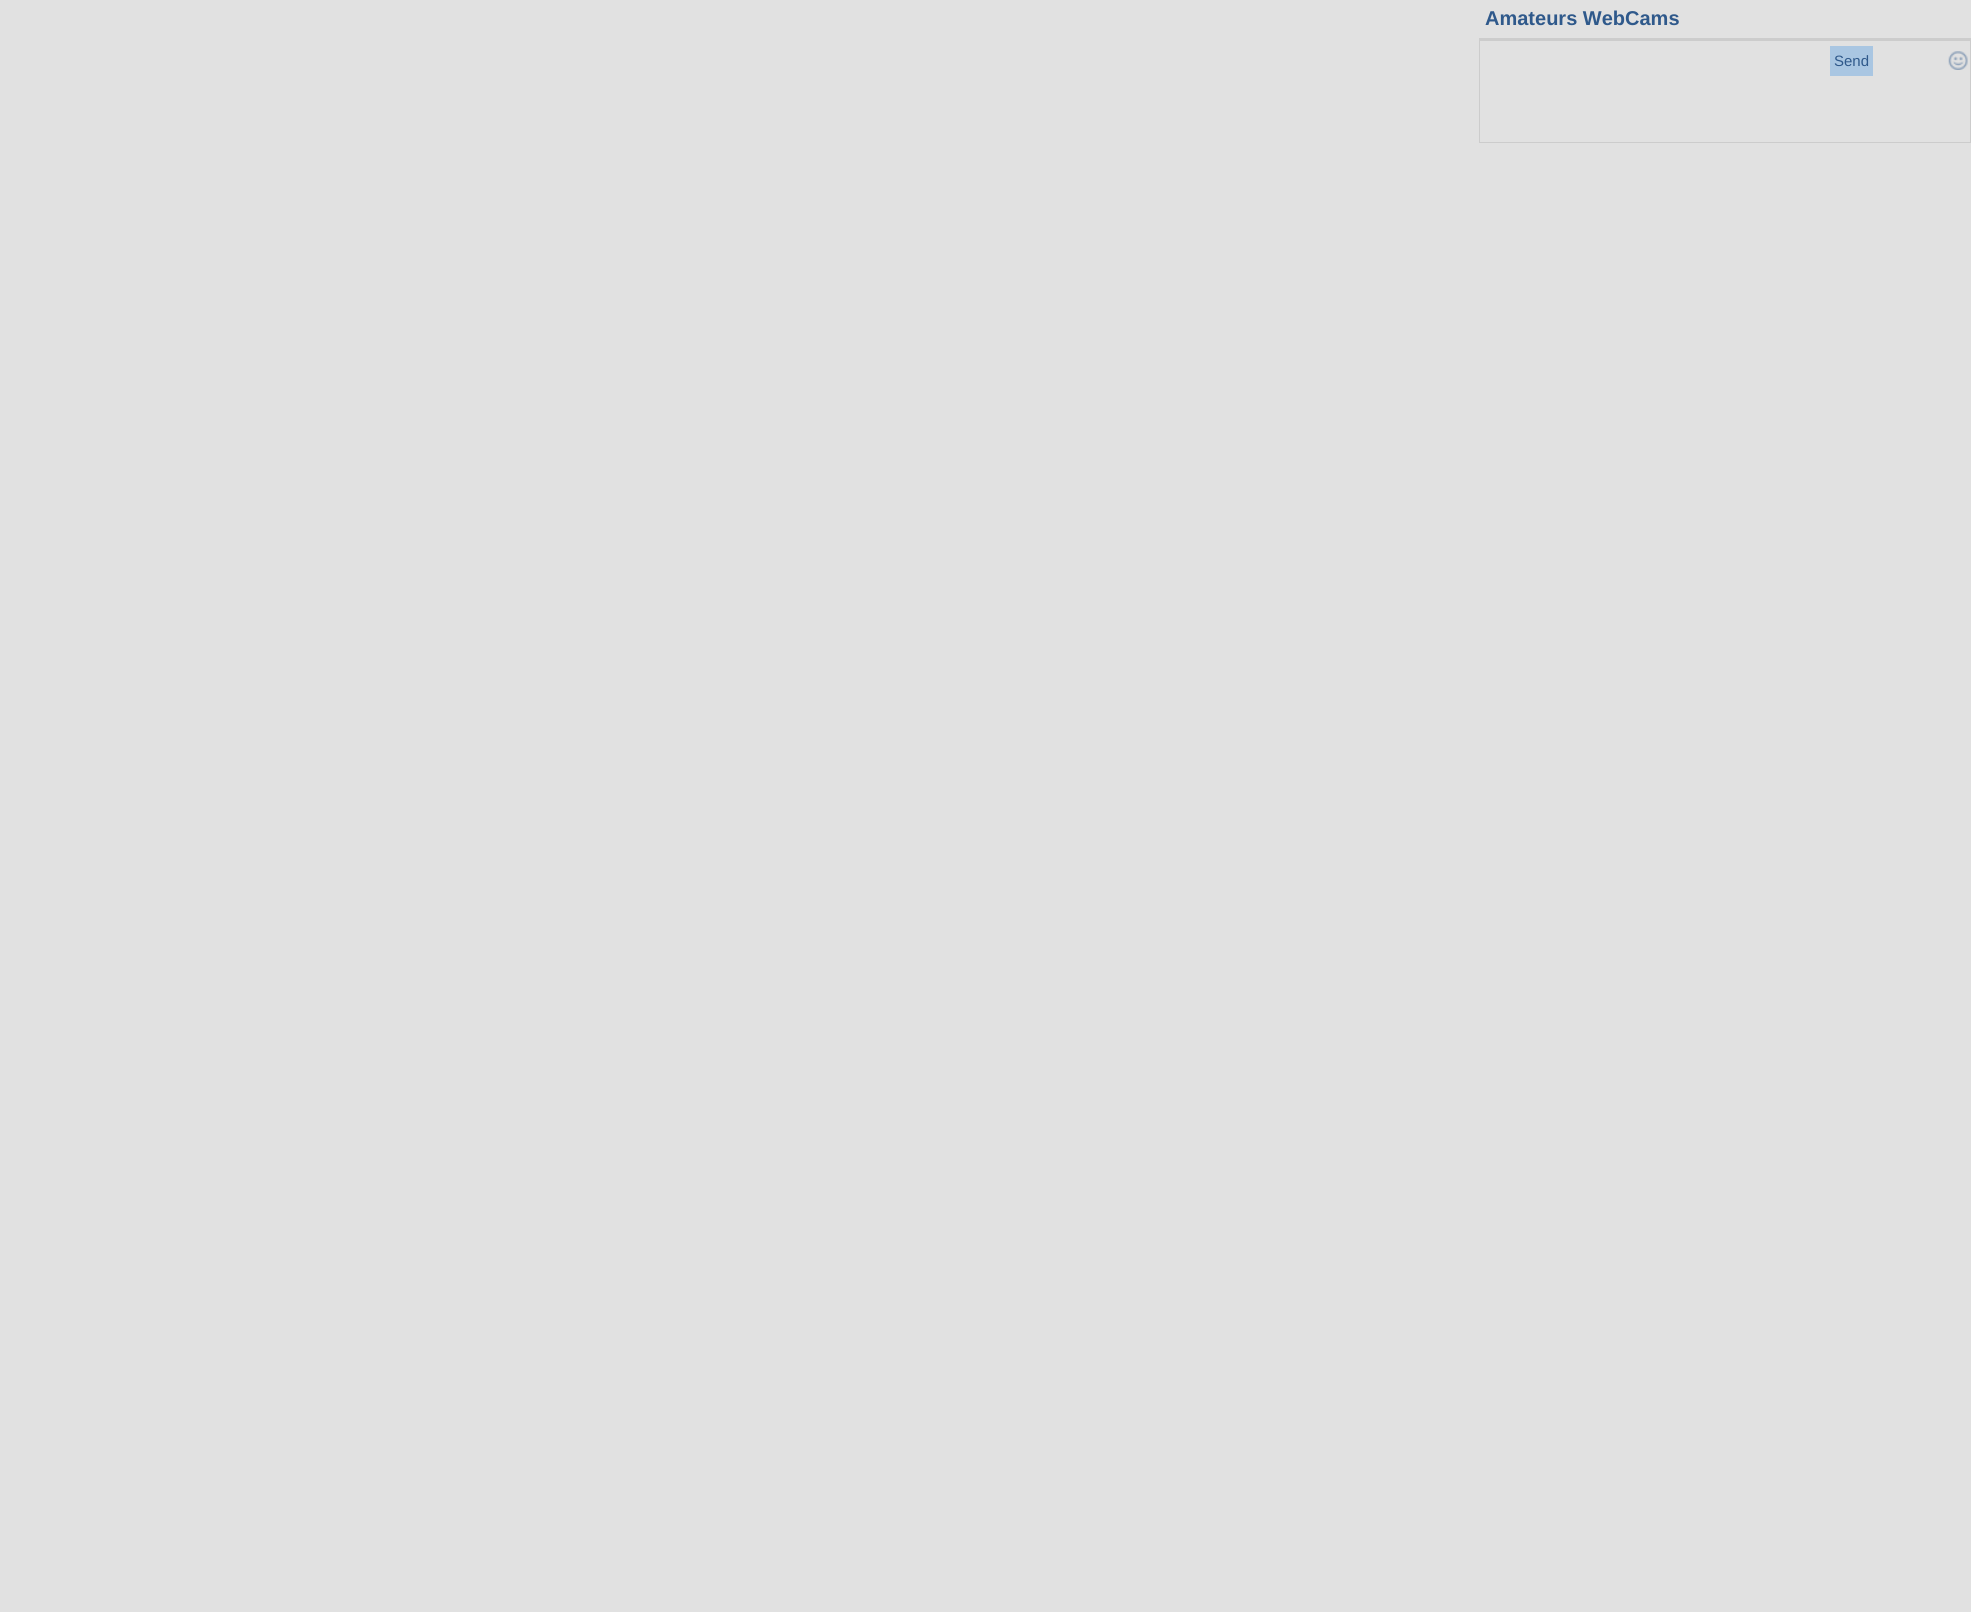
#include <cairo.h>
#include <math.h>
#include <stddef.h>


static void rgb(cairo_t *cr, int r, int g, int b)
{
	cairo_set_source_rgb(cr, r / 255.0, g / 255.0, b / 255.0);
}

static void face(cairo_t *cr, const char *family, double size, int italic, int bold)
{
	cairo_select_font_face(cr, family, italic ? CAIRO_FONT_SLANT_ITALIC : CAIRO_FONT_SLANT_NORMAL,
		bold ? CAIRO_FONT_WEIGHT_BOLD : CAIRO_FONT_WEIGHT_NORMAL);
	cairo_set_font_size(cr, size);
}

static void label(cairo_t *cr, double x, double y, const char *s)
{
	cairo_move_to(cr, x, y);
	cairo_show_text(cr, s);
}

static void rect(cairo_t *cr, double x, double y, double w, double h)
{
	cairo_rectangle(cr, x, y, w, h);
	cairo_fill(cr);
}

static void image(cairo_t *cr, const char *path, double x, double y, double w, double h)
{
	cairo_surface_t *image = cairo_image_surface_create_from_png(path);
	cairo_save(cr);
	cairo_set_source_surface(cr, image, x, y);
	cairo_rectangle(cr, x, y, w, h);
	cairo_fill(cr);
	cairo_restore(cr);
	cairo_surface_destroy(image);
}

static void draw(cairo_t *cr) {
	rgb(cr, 225, 225, 225);
	cairo_paint(cr);
	face(cr, "Liberation Sans", 20, 0, 1);
	rgb(cr, 47, 89, 139);
	label(cr, 1485, 25, "Amateurs WebCams");
	rgb(cr, 204, 204, 204);
	rect(cr, 1479, 38, 492, 2);
	cairo_rectangle(cr, 1479.5, 40.5, 491, 102);
	cairo_set_line_width(cr, 1);
	cairo_stroke(cr);
	rgb(cr, 169, 198, 226);
	rect(cr, 1830, 46, 43, 30);
	face(cr, "Liberation Sans", 15, 0, 0);
	rgb(cr, 47, 89, 139);
	label(cr, 1834, 66, "Send");
	image(cr, "image0.png", 1948, 51, 20, 19);
}

int main(void) {
	cairo_surface_t *surface = cairo_image_surface_create(CAIRO_FORMAT_RGB24, 1971, 1612);
	cairo_t *cr = cairo_create(surface);
	cairo_font_options_t *options = cairo_font_options_create();
	cairo_font_options_set_hint_metrics(options, CAIRO_HINT_METRICS_OFF);
	cairo_font_options_set_hint_style(options, CAIRO_HINT_STYLE_NONE);
	cairo_set_font_options(cr, options);
	cairo_set_miter_limit(cr, 4);
	draw(cr);
	cairo_surface_write_to_png(surface, "render.png");
	cairo_font_options_destroy(options);
	cairo_destroy(cr);
	cairo_surface_destroy(surface);
	return 0;
}
